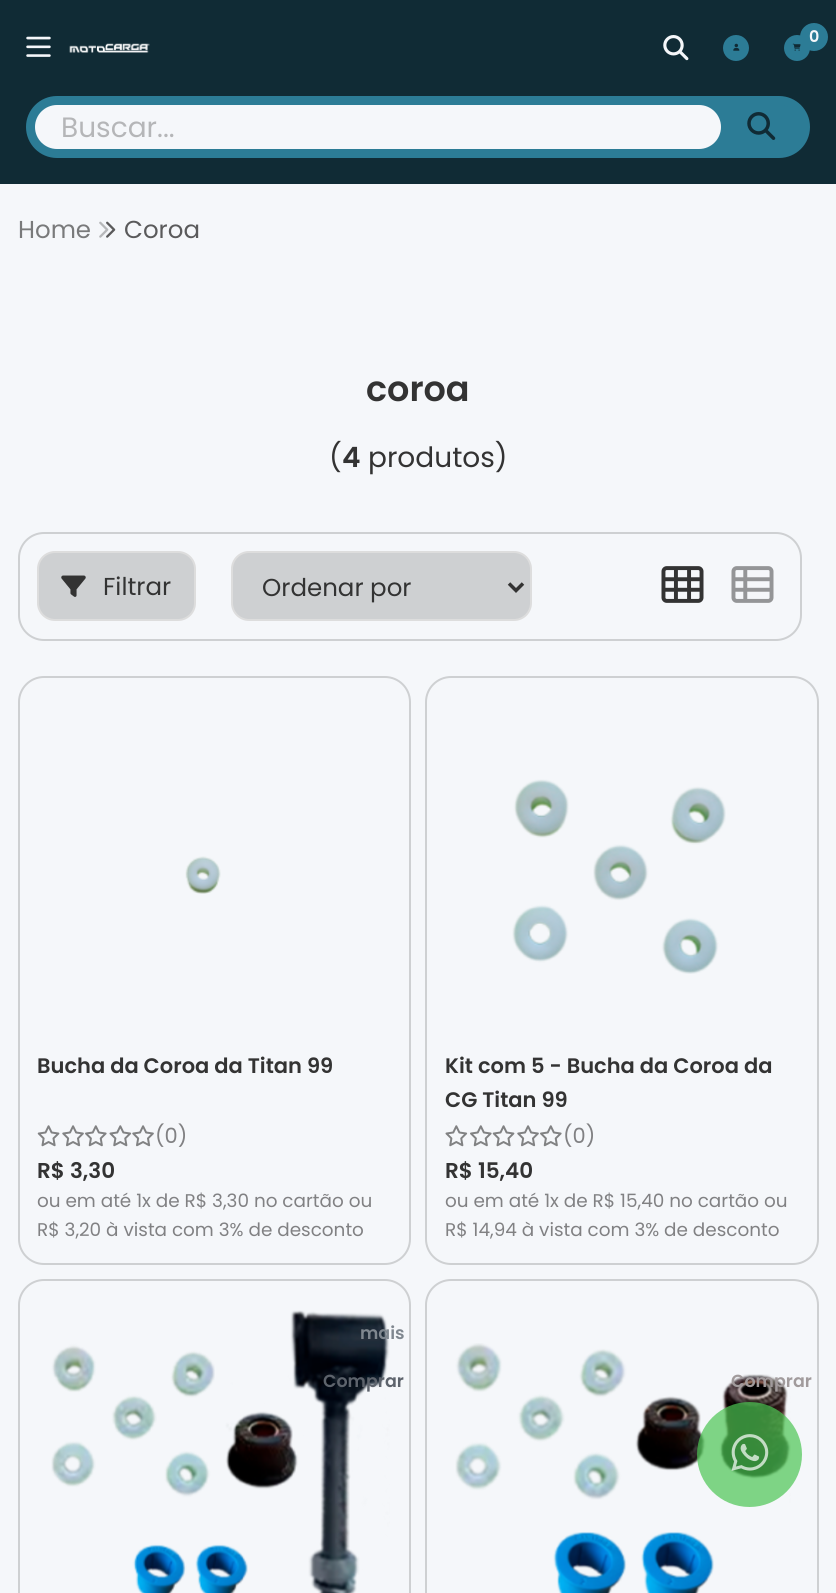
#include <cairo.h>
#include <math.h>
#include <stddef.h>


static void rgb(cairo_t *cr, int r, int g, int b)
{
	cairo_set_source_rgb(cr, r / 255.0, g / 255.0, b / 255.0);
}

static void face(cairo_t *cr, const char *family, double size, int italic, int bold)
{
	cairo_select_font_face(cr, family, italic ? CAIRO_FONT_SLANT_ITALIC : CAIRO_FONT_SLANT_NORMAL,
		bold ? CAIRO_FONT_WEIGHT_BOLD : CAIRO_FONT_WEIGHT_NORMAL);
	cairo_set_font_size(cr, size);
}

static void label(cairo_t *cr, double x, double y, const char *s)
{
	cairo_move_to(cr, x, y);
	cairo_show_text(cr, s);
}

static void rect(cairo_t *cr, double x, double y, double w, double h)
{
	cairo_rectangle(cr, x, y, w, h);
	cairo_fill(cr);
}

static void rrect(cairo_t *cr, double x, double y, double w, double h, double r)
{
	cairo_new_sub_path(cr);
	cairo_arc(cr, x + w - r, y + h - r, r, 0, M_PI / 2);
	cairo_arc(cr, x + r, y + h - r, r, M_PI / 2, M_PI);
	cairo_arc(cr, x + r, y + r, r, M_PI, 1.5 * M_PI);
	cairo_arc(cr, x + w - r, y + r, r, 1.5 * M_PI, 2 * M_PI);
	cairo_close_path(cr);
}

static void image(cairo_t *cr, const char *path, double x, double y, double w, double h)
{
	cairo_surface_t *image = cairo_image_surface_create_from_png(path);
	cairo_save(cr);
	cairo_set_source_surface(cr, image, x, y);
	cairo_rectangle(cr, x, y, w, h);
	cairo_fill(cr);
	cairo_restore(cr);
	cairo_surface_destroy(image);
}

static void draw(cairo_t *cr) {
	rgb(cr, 245, 247, 250);
	cairo_paint(cr);
	rgb(cr, 16, 43, 53);
	rect(cr, 0, 0, 836, 184);
	image(cr, "image0.png", 26, 36, 25, 21);
	image(cr, "image1.png", 69, 43, 81, 10);
	image(cr, "image2.png", 663, 35, 26, 26);
	rgb(cr, 44, 124, 150);
	cairo_arc(cr, 736, 48, 13, 0, 2 * M_PI);
	cairo_fill(cr);
	image(cr, "image3.png", 733, 43, 7, 8);
	cairo_arc(cr, 797, 48, 13, 0, 2 * M_PI);
	cairo_fill(cr);
	image(cr, "image4.png", 792, 43, 9, 8);
	cairo_arc(cr, 814, 37, 14, 0, 2 * M_PI);
	cairo_fill(cr);
	face(cr, "Poppins SemiBold", 16, 0, 0);
	rgb(cr, 245, 247, 250);
	label(cr, 809, 42, "0");
	rgb(cr, 44, 124, 150);
	rrect(cr, 30.5, 100.5, 775, 53, 26.5);
	cairo_fill_preserve(cr);
	cairo_set_line_width(cr, 9);
	cairo_stroke(cr);
	rgb(cr, 245, 247, 250);
	rrect(cr, 35, 105, 686, 44, 22);
	cairo_fill(cr);
	face(cr, "Poppins", 28, 0, 0);
	rgb(cr, 181, 182, 184);
	label(cr, 61, 137, "Buscar...");
	image(cr, "image5.png", 747, 112, 29, 28);
	face(cr, "Poppins", 24.5, 0, 0);
	rgb(cr, 121, 122, 123);
	label(cr, 18, 238, "Home");
	image(cr, "image6.png", 99, 221, 17, 17);
	rgb(cr, 90, 90, 91);
	label(cr, 124, 238, "Coroa");
	face(cr, "Poppins SemiBold", 35, 0, 0);
	rgb(cr, 51, 51, 51);
	label(cr, 366, 401, "coroa");
	face(cr, "Poppins", 28, 0, 0);
	label(cr, 329, 467, "(");
	face(cr, "Poppins SemiBold", 28, 0, 0);
	label(cr, 342, 467, "4");
	face(cr, "Poppins", 28, 0, 0);
	label(cr, 368, 467, "produtos)");
	rrect(cr, 19, 533, 782, 107, 25);
	rgb(cr, 206, 208, 210);
	cairo_set_line_width(cr, 2);
	cairo_stroke(cr);
	rrect(cr, 38, 552, 157, 68, 17);
	cairo_fill_preserve(cr);
	rgb(cr, 221, 221, 221);
	cairo_stroke(cr);
	image(cr, "image7.png", 61, 575, 25, 22);
	face(cr, "Poppins", 24.5, 0, 0);
	rgb(cr, 51, 51, 51);
	label(cr, 103, 595, "Filtrar");
	rgb(cr, 206, 208, 210);
	rrect(cr, 232, 552, 299, 68, 17);
	cairo_fill_preserve(cr);
	rgb(cr, 221, 221, 221);
	cairo_stroke(cr);
	cairo_new_path(cr);
	cairo_move_to(cr, 509, 583.5);
	cairo_line_to(cr, 516, 590.5);
	cairo_line_to(cr, 523, 583.5);
	rgb(cr, 51, 51, 51);
	cairo_set_line_width(cr, 3.5);
	cairo_stroke(cr);
	label(cr, 262, 596, "Ordenar por");
	image(cr, "image8.png", 661, 566, 43, 37);
	image(cr, "image9.png", 731, 566, 43, 37);
	rrect(cr, 19, 677, 391, 587, 25);
	rgb(cr, 206, 208, 210);
	cairo_set_line_width(cr, 2);
	cairo_stroke(cr);
	image(cr, "image10.png", 185, 856, 36, 38);
	face(cr, "Poppins SemiBold", 21, 0, 0);
	rgb(cr, 51, 51, 51);
	label(cr, 37, 1073, "Bucha da Coroa da Titan 99");
	image(cr, "image11.png", 37, 1125, 23, 22);
	image(cr, "image12.png", 62, 1125, 22, 22);
	image(cr, "image13.png", 85, 1125, 22, 22);
	image(cr, "image14.png", 109, 1125, 23, 22);
	image(cr, "image12.png", 132, 1125, 22, 22);
	face(cr, "Poppins", 21, 0, 0);
	rgb(cr, 129, 129, 131);
	label(cr, 155, 1143, "(0)");
	face(cr, "Poppins SemiBold", 21.5, 0, 0);
	rgb(cr, 51, 51, 51);
	label(cr, 37, 1178, "R$ 3,30");
	face(cr, "Poppins", 18.4, 0, 0);
	rgb(cr, 129, 129, 131);
	label(cr, 37, 1207, "ou em até 1x de R$ 3,30 no cartão ou");
	label(cr, 37, 1236, "R$ 3,20 à vista com 3% de desconto");
	rrect(cr, 426, 677, 392, 587, 25);
	rgb(cr, 206, 208, 210);
	cairo_stroke(cr);
	image(cr, "image15.png", 512, 779, 214, 195);
	face(cr, "Poppins SemiBold", 21, 0, 0);
	rgb(cr, 51, 51, 51);
	label(cr, 445, 1073, "Kit com 5 - Bucha da Coroa da");
	label(cr, 445, 1107, "CG Titan 99");
	image(cr, "image14.png", 445, 1125, 23, 22);
	image(cr, "image13.png", 470, 1125, 22, 22);
	image(cr, "image11.png", 492, 1125, 23, 22);
	image(cr, "image12.png", 517, 1125, 22, 22);
	image(cr, "image13.png", 540, 1125, 22, 22);
	face(cr, "Poppins", 21, 0, 0);
	rgb(cr, 129, 129, 131);
	label(cr, 563, 1143, "(0)");
	face(cr, "Poppins SemiBold", 21.5, 0, 0);
	rgb(cr, 51, 51, 51);
	label(cr, 445, 1178, "R$ 15,40");
	face(cr, "Poppins", 18.4, 0, 0);
	rgb(cr, 129, 129, 131);
	label(cr, 445, 1207, "ou em até 1x de R$ 15,40 no cartão ou");
	label(cr, 445, 1236, "R$ 14,94 à vista com 3% de desconto");
	rrect(cr, 19, 1280, 391, 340, 25);
	rgb(cr, 206, 208, 210);
	cairo_stroke(cr);
	image(cr, "image16.png", 51, 1310, 339, 283);
	face(cr, "Poppins SemiBold", 17.5, 0, 0);
	rgb(cr, 127, 135, 143);
	label(cr, 360, 1339, "mais");
	rgb(cr, 93, 99, 108);
	label(cr, 323, 1387, "Comprar");
	rrect(cr, 426, 1280, 392, 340, 25);
	rgb(cr, 206, 208, 210);
	cairo_stroke(cr);
	image(cr, "image17.png", 455, 1343, 336, 250);
	rgb(cr, 161, 155, 156);
	label(cr, 731, 1387, "Comprar");
	cairo_set_source_rgba(cr, 0.298, 0.773, 0.329, 0.7);
	cairo_new_path(cr);
	cairo_arc(cr, 749.5, 1454.5, 52.5, 0, 2 * M_PI);
	cairo_fill(cr);
	image(cr, "image18.png", 731, 1434, 38, 37);
}

int main(void) {
	cairo_surface_t *surface = cairo_image_surface_create(CAIRO_FORMAT_RGB24, 836, 1593);
	cairo_t *cr = cairo_create(surface);
	cairo_font_options_t *options = cairo_font_options_create();
	cairo_font_options_set_hint_metrics(options, CAIRO_HINT_METRICS_OFF);
	cairo_font_options_set_hint_style(options, CAIRO_HINT_STYLE_NONE);
	cairo_set_font_options(cr, options);
	cairo_set_miter_limit(cr, 4);
	draw(cr);
	cairo_surface_write_to_png(surface, "render.png");
	cairo_font_options_destroy(options);
	cairo_destroy(cr);
	cairo_surface_destroy(surface);
	return 0;
}
